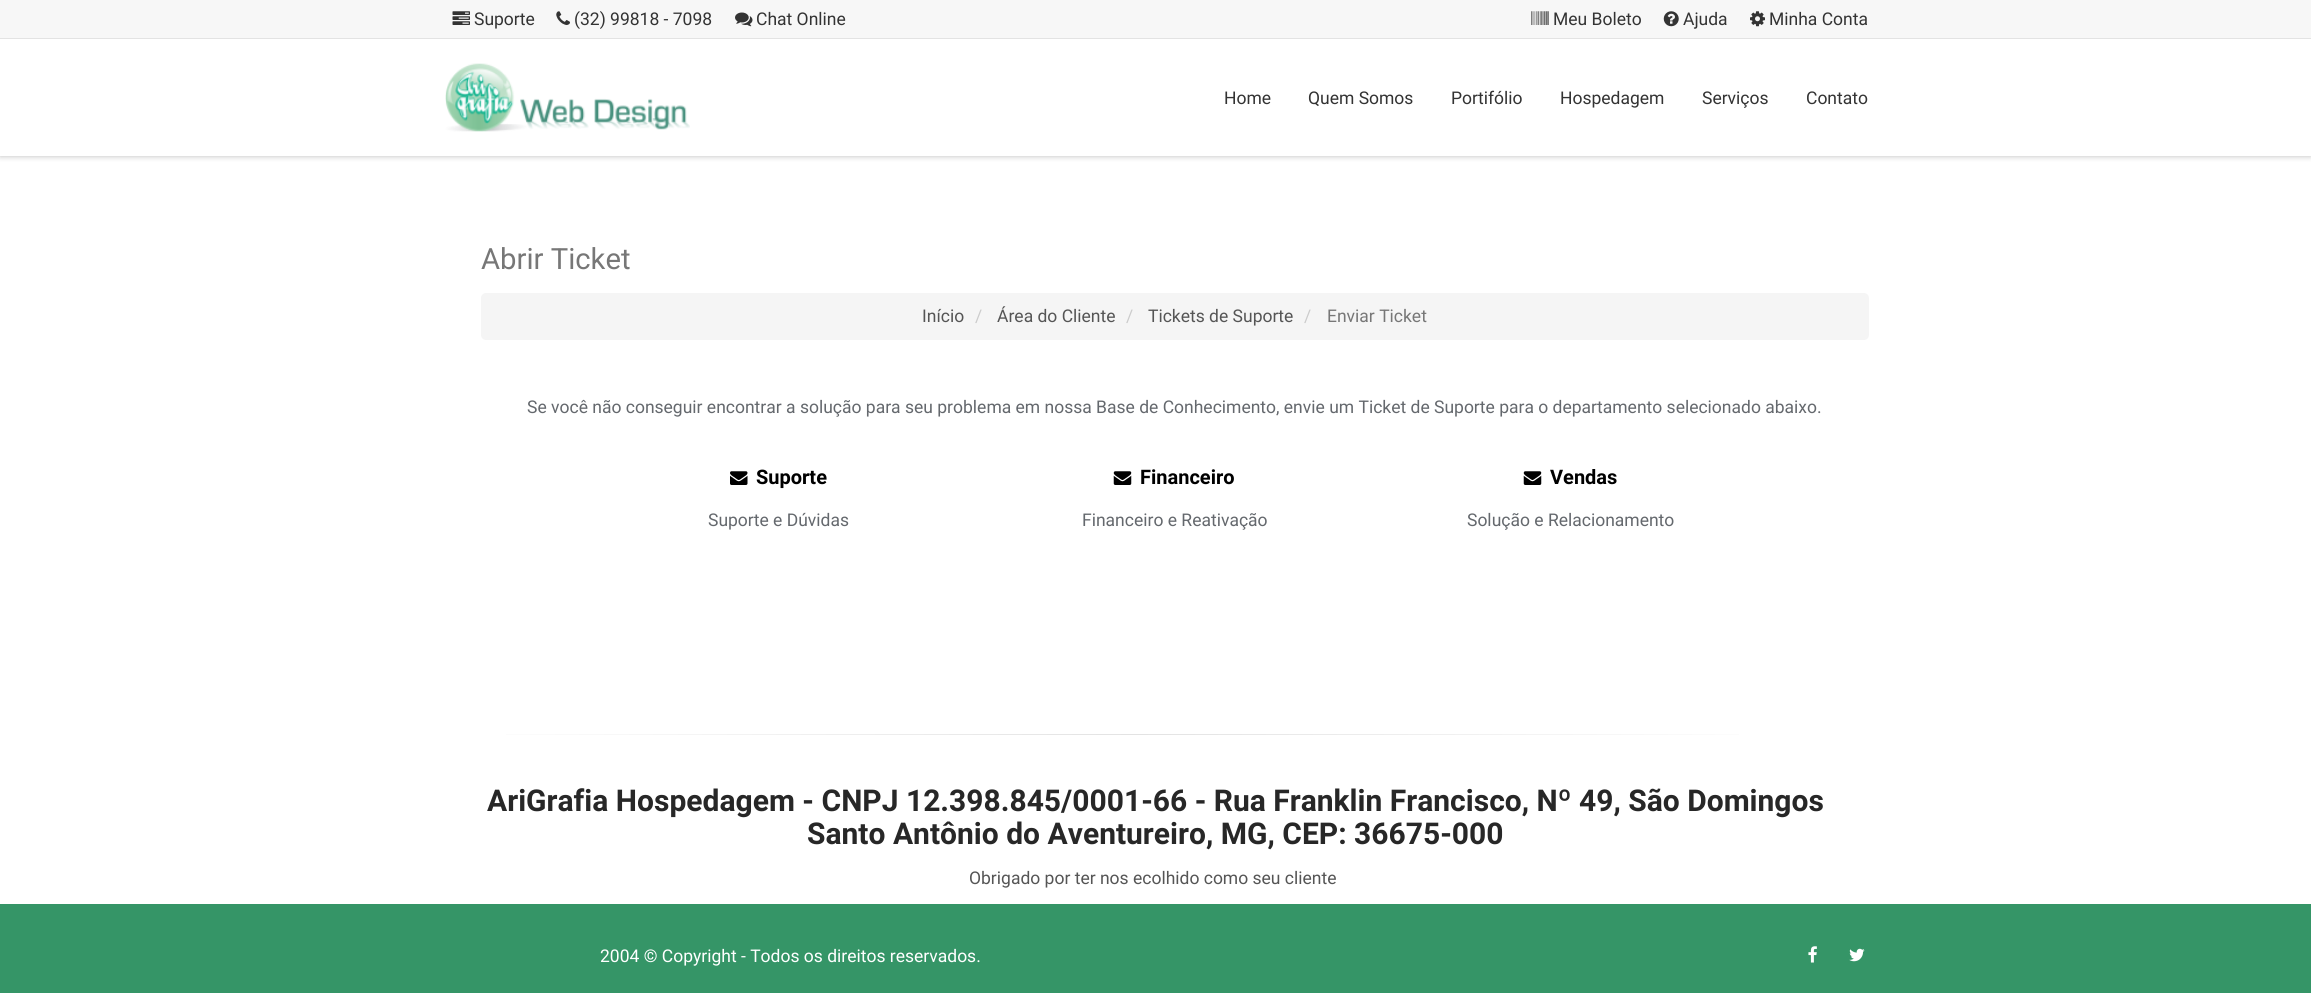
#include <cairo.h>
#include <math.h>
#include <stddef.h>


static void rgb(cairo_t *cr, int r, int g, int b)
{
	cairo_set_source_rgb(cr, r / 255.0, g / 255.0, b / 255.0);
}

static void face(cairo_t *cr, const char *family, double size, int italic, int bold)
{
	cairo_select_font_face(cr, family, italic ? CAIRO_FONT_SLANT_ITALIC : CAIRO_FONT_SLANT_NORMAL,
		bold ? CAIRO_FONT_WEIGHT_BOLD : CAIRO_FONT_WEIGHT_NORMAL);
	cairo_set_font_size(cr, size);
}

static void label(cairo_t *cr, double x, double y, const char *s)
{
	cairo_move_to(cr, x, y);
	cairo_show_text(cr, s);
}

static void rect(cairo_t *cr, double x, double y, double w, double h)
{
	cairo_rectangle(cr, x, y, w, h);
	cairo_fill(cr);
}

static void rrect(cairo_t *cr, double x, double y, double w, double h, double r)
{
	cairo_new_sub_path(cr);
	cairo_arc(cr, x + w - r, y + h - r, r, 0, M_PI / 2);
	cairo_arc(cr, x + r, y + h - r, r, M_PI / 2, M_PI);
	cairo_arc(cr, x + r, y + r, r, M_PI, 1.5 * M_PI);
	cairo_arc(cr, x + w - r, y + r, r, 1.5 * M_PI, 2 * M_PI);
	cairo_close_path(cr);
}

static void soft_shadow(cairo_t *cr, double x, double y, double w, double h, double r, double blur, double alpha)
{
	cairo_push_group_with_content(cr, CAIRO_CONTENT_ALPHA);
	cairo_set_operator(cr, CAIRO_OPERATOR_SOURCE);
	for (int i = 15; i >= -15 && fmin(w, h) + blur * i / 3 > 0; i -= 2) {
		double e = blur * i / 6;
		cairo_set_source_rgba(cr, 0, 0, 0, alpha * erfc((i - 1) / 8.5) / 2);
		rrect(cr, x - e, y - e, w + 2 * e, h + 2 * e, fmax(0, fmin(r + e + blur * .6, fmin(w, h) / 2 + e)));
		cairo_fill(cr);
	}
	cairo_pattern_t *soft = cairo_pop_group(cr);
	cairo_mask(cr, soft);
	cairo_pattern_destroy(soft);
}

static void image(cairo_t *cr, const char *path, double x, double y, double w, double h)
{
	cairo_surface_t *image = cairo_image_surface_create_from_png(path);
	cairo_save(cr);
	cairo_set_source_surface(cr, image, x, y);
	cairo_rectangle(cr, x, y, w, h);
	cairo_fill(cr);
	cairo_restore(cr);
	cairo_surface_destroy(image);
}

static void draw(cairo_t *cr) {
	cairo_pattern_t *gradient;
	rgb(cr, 255, 255, 255);
	cairo_paint(cr);
	cairo_save(cr);
	cairo_rectangle(cr, 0, 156, 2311, 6);
	cairo_clip(cr);
	rgb(cr, 187, 187, 187);
	soft_shadow(cr, 0, 0, 2311, 156, 0, 3, 1);
	cairo_restore(cr);
	rgb(cr, 247, 247, 247);
	rect(cr, 0, 0, 2311, 38);
	rgb(cr, 227, 227, 227);
	rect(cr, 0, 38, 2311, 1);
	image(cr, "image0.png", 452, 11, 18, 14);
	face(cr, "Roboto", 17.5, 0, 0);
	rgb(cr, 51, 51, 51);
	label(cr, 474, 25, "Suporte");
	image(cr, "image1.png", 556, 11, 14, 14);
	label(cr, 574, 25, "(32) 99818 - 7098");
	image(cr, "image2.png", 735, 12, 18, 15);
	label(cr, 756, 25, "Chat Online");
	image(cr, "image3.png", 1531, 11, 18, 14);
	label(cr, 1553, 25, "Meu Boleto");
	image(cr, "image4.png", 1663, 11, 16, 16);
	label(cr, 1683, 25, "Ajuda");
	image(cr, "image5.png", 1750, 11, 15, 16);
	label(cr, 1769, 25, "Minha Conta");
	image(cr, "image6.png", 445, 63, 245, 69);
	label(cr, 1224, 104, "Home");
	label(cr, 1308, 104, "Quem Somos");
	label(cr, 1451, 104, "Portifólio");
	label(cr, 1560, 104, "Hospedagem");
	label(cr, 1702, 104, "Serviços");
	label(cr, 1806, 104, "Contato");
	face(cr, "Roboto", 29.25, 0, 0);
	rgb(cr, 119, 119, 119);
	label(cr, 481, 269, "Abrir Ticket");
	rgb(cr, 245, 245, 245);
	rrect(cr, 481, 293, 1388, 47, 5);
	cairo_fill(cr);
	face(cr, "Roboto", 17.5, 0, 0);
	rgb(cr, 85, 85, 85);
	label(cr, 922, 322, "Início");
	rgb(cr, 204, 204, 204);
	label(cr, 975, 322, "/");
	rgb(cr, 85, 85, 85);
	label(cr, 997, 322, "Área do Cliente");
	rgb(cr, 204, 204, 204);
	label(cr, 1126, 322, "/");
	rgb(cr, 85, 85, 85);
	label(cr, 1148, 322, "Tickets de Suporte");
	rgb(cr, 204, 204, 204);
	label(cr, 1304, 322, "/");
	rgb(cr, 119, 119, 119);
	label(cr, 1327, 322, "Enviar Ticket");
	rgb(cr, 100, 104, 109);
	label(cr, 527, 413, "Se você não conseguir encontrar a solução para seu problema em nossa Base de Conhecimento, envie um Ticket de Suporte para o departamento selecionado abaixo.");
	image(cr, "image7.png", 730, 471, 18, 14);
	face(cr, "Roboto", 20, 0, 1);
	rgb(cr, 0, 0, 0);
	label(cr, 756, 484, "Suporte");
	face(cr, "Roboto", 17.5, 0, 0);
	rgb(cr, 100, 104, 109);
	label(cr, 708, 526, "Suporte e Dúvidas");
	image(cr, "image8.png", 1113, 471, 19, 14);
	face(cr, "Roboto", 20, 0, 1);
	rgb(cr, 0, 0, 0);
	label(cr, 1140, 484, "Financeiro");
	face(cr, "Roboto", 17.5, 0, 0);
	rgb(cr, 100, 104, 109);
	label(cr, 1082, 526, "Financeiro e Reativação");
	image(cr, "image8.png", 1523, 471, 19, 14);
	face(cr, "Roboto", 20, 0, 1);
	rgb(cr, 0, 0, 0);
	label(cr, 1550, 484, "Vendas");
	face(cr, "Roboto", 17.5, 0, 0);
	rgb(cr, 100, 104, 109);
	label(cr, 1467, 526, "Solução e Relacionamento");
	gradient = cairo_pattern_create_linear(1798, 734, 444, 734);
	cairo_pattern_add_color_stop_rgba(gradient, 0, 1, 1, 1, 1);
	cairo_pattern_add_color_stop_rgba(gradient, 0.49, 0.89, 0.89, 0.89, 1);
	cairo_pattern_add_color_stop_rgba(gradient, 1, 1, 1, 1, 1);
	cairo_set_source(cr, gradient);
	cairo_pattern_destroy(gradient);
	rect(cr, 506, 734, 1233, 1);
	face(cr, "Roboto", 30, 0, 1);
	rgb(cr, 39, 39, 39);
	label(cr, 487, 811, "AriGrafia Hospedagem - CNPJ 12.398.845/0001-66 - Rua Franklin Francisco, Nº 49, São Domingos");
	label(cr, 807, 844, "Santo Antônio do Aventureiro, MG, CEP: 36675-000");
	face(cr, "Roboto", 17.5, 0, 0);
	rgb(cr, 85, 85, 85);
	label(cr, 969, 884, "Obrigado por ter nos ecolhido como seu cliente");
	rgb(cr, 53, 149, 103);
	rect(cr, 0, 904, 2311, 89);
	rgb(cr, 255, 255, 255);
	label(cr, 600, 962, "2004 © Copyright - Todos os direitos reservados.");
	image(cr, "image9.png", 1808, 946, 9, 17);
	image(cr, "image10.png", 1849, 948, 16, 14);
}

int main(void) {
	cairo_surface_t *surface = cairo_image_surface_create(CAIRO_FORMAT_RGB24, 2311, 993);
	cairo_t *cr = cairo_create(surface);
	cairo_font_options_t *options = cairo_font_options_create();
	cairo_font_options_set_hint_metrics(options, CAIRO_HINT_METRICS_OFF);
	cairo_font_options_set_hint_style(options, CAIRO_HINT_STYLE_NONE);
	cairo_set_font_options(cr, options);
	cairo_set_miter_limit(cr, 4);
	draw(cr);
	cairo_surface_write_to_png(surface, "render.png");
	cairo_font_options_destroy(options);
	cairo_destroy(cr);
	cairo_surface_destroy(surface);
	return 0;
}
